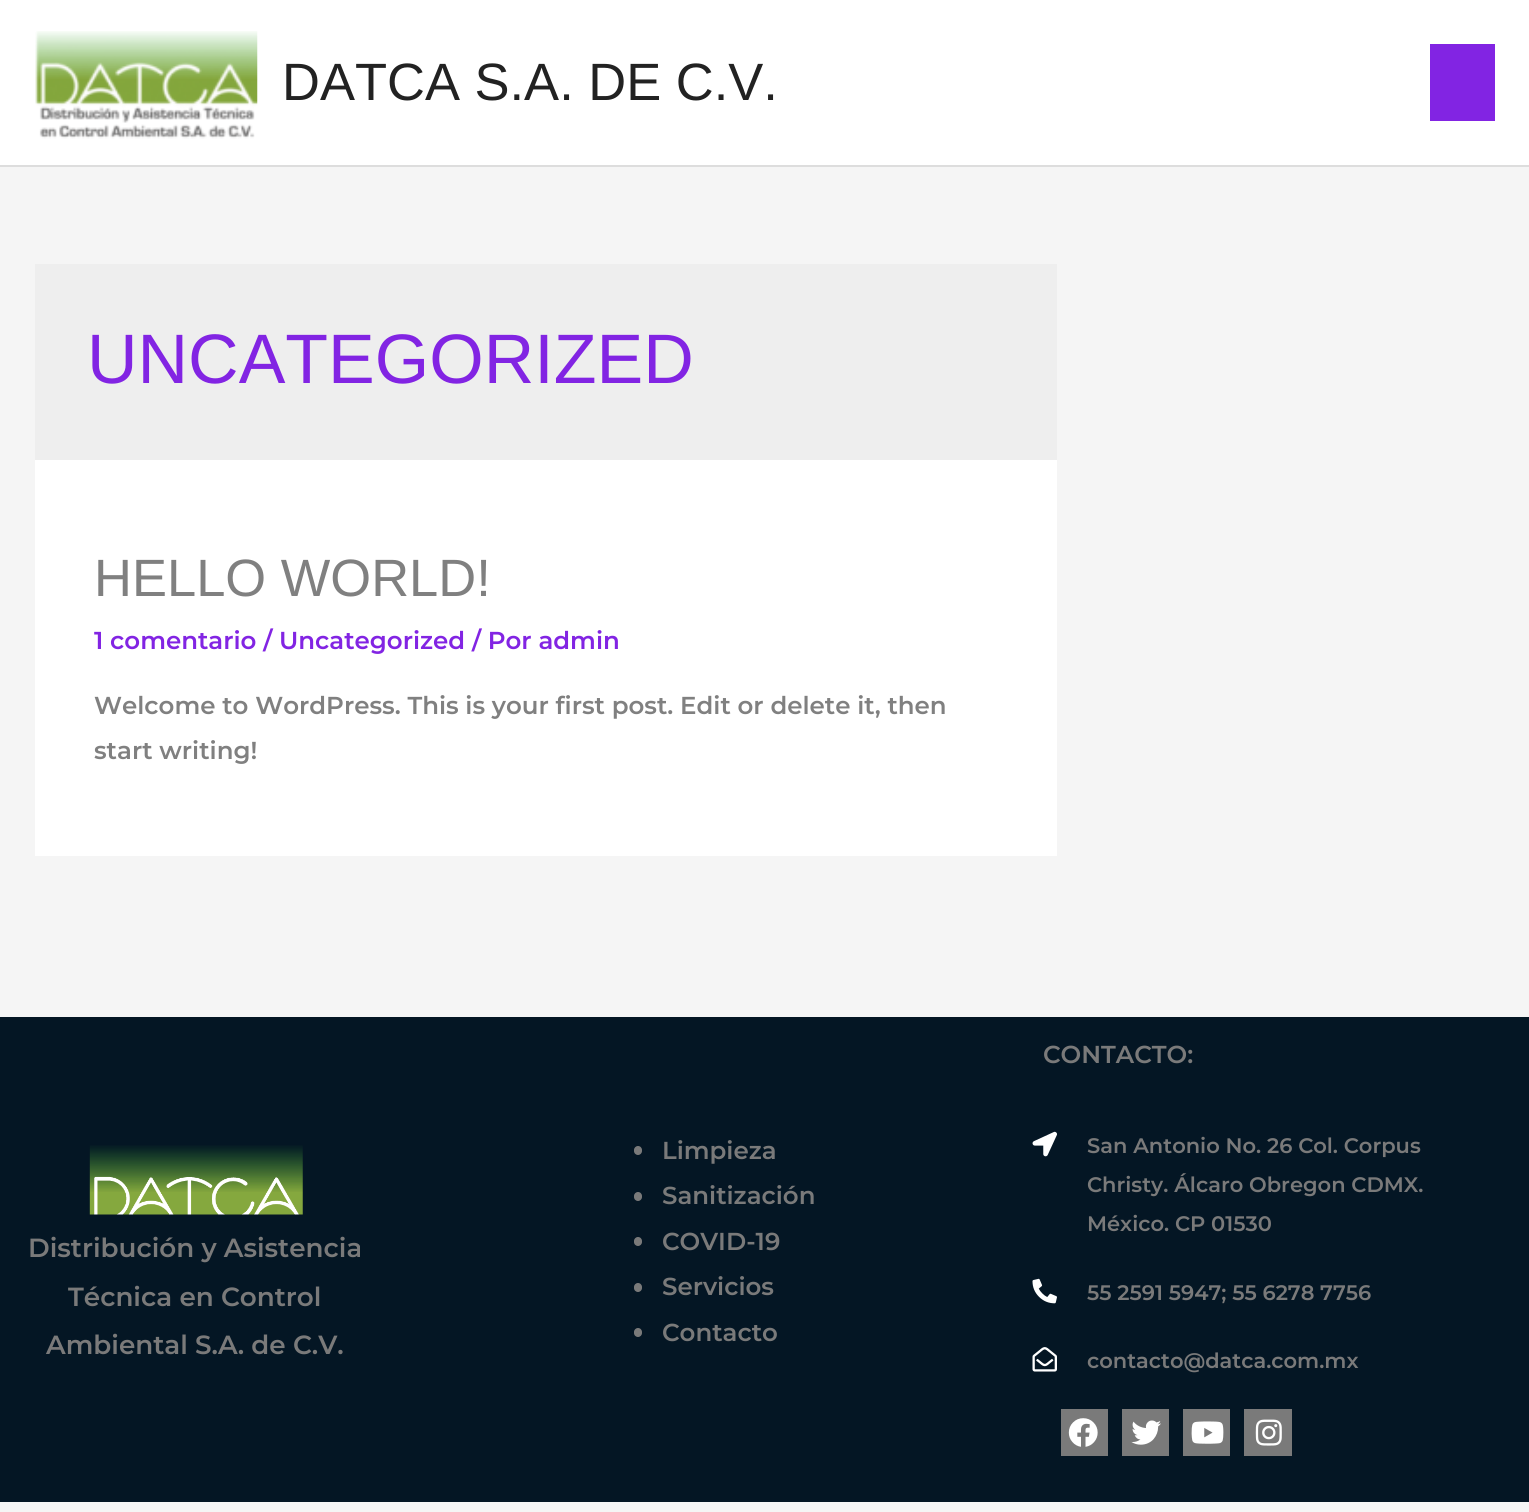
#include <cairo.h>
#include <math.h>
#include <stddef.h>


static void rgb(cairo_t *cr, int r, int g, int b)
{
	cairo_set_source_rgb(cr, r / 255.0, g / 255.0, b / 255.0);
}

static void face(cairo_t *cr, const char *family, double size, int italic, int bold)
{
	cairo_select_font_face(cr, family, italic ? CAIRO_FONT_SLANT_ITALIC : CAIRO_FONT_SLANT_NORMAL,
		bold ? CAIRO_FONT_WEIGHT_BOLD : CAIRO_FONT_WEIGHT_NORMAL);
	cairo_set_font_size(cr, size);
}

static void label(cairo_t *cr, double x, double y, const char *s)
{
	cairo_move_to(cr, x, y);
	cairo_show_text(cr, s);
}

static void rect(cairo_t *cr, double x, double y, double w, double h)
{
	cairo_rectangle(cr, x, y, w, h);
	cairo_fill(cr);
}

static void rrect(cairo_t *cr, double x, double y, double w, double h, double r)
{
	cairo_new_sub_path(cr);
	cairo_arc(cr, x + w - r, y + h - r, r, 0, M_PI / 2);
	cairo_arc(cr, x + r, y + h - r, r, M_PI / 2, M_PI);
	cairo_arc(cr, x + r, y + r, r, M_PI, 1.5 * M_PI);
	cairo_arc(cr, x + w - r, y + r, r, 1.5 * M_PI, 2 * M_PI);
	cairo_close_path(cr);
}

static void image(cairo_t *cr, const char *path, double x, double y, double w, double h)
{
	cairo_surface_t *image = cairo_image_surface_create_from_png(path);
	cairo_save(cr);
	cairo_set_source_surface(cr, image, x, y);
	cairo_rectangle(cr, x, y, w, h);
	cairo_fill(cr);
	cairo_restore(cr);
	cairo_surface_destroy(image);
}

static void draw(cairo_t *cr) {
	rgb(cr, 245, 245, 245);
	cairo_paint(cr);
	rgb(cr, 221, 221, 221);
	rect(cr, 0, 165, 1529, 2);
	rgb(cr, 255, 255, 255);
	rect(cr, 0, 0, 1529, 165);
	image(cr, "image0.png", 35, 31, 223, 108);
	face(cr, "Liberation Sans", 52.5, 0, 0);
	rgb(cr, 34, 34, 34);
	label(cr, 282, 100, "DATCA S.A. DE C.V.");
	rgb(cr, 130, 36, 227);
	rect(cr, 1430, 44, 65, 77);
	rgb(cr, 238, 238, 238);
	rect(cr, 35, 264, 1022, 196);
	face(cr, "Liberation Sans", 70, 0, 0);
	rgb(cr, 130, 36, 227);
	label(cr, 87, 383, "UNCATEGORIZED");
	rgb(cr, 255, 255, 255);
	rect(cr, 35, 460, 1022, 396);
	face(cr, "Liberation Sans", 52.5, 0, 0);
	rgb(cr, 128, 128, 128);
	label(cr, 94, 596, "HELLO WORLD!");
	face(cr, "Montserrat SemiBold", 24.5, 0, 0);
	rgb(cr, 130, 36, 227);
	label(cr, 94, 649, "1 comentario / Uncategorized / Por admin");
	rgb(cr, 128, 128, 128);
	label(cr, 94, 714, "Welcome to WordPress. This is your first post. Edit or delete it, then");
	label(cr, 94, 759, "start writing!");
	rgb(cr, 4, 22, 36);
	rect(cr, 0, 1017, 1529, 485);
	image(cr, "image1.png", 89, 1145, 214, 70);
	face(cr, "Montserrat SemiBold", 26.25, 0, 0);
	rgb(cr, 122, 122, 122);
	label(cr, 28, 1257, "Distribución y Asistencia");
	label(cr, 68, 1306, "Técnica en Control");
	label(cr, 46, 1354, "Ambiental S.A. de C.V.");
	rrect(cr, 634, 1146, 8, 9, 4);
	cairo_fill(cr);
	face(cr, "Montserrat SemiBold", 24.5, 0, 0);
	label(cr, 662, 1159, "Limpieza");
	rrect(cr, 634, 1192, 8, 9, 4);
	cairo_fill(cr);
	label(cr, 662, 1204, "Sanitización");
	rrect(cr, 634, 1237, 8, 9, 4);
	cairo_fill(cr);
	label(cr, 662, 1250, "COVID-19");
	rrect(cr, 634, 1283, 8, 9, 4);
	cairo_fill(cr);
	label(cr, 662, 1295, "Servicios");
	rrect(cr, 634, 1328, 8, 9, 4);
	cairo_fill(cr);
	label(cr, 662, 1341, "Contacto");
	label(cr, 1043, 1063, "CONTACTO:");
	image(cr, "image2.png", 1032, 1131, 25, 26);
	face(cr, "Montserrat SemiBold", 21, 0, 0);
	label(cr, 1087, 1153, "San Antonio No. 26 Col. Corpus");
	label(cr, 1087, 1192, "Christy. Álcaro Obregon CDMX.");
	label(cr, 1087, 1231, "México. CP 01530");
	image(cr, "image3.png", 1032, 1278, 25, 26);
	label(cr, 1087, 1300, "55 2591 5947; 55 6278 7756");
	image(cr, "image4.png", 1032, 1347, 25, 25);
	label(cr, 1087, 1368, "contacto@datca.com.mx");
	rect(cr, 1061, 1409, 47, 47);
	image(cr, "image5.png", 1068, 1418, 30, 29);
	rect(cr, 1122, 1409, 47, 47);
	image(cr, "image6.png", 1131, 1420, 30, 25);
	rect(cr, 1183, 1409, 47, 47);
	image(cr, "image7.png", 1191, 1421, 33, 23);
	rect(cr, 1244, 1409, 48, 47);
	image(cr, "image8.png", 1255, 1419, 27, 27);
}

int main(void) {
	cairo_surface_t *surface = cairo_image_surface_create(CAIRO_FORMAT_RGB24, 1529, 1512);
	cairo_t *cr = cairo_create(surface);
	cairo_font_options_t *options = cairo_font_options_create();
	cairo_font_options_set_hint_metrics(options, CAIRO_HINT_METRICS_OFF);
	cairo_font_options_set_hint_style(options, CAIRO_HINT_STYLE_NONE);
	cairo_set_font_options(cr, options);
	cairo_set_miter_limit(cr, 4);
	draw(cr);
	cairo_surface_write_to_png(surface, "render.png");
	cairo_font_options_destroy(options);
	cairo_destroy(cr);
	cairo_surface_destroy(surface);
	return 0;
}
